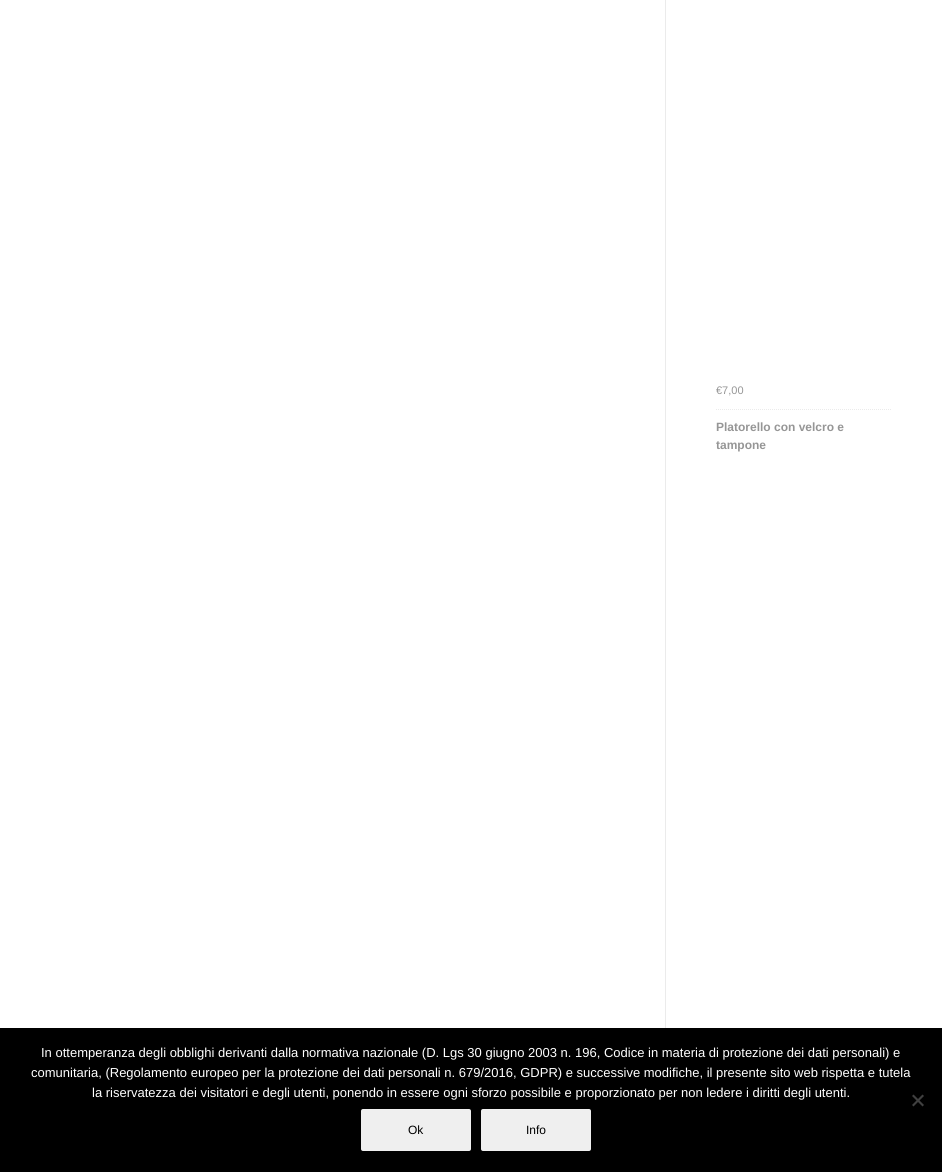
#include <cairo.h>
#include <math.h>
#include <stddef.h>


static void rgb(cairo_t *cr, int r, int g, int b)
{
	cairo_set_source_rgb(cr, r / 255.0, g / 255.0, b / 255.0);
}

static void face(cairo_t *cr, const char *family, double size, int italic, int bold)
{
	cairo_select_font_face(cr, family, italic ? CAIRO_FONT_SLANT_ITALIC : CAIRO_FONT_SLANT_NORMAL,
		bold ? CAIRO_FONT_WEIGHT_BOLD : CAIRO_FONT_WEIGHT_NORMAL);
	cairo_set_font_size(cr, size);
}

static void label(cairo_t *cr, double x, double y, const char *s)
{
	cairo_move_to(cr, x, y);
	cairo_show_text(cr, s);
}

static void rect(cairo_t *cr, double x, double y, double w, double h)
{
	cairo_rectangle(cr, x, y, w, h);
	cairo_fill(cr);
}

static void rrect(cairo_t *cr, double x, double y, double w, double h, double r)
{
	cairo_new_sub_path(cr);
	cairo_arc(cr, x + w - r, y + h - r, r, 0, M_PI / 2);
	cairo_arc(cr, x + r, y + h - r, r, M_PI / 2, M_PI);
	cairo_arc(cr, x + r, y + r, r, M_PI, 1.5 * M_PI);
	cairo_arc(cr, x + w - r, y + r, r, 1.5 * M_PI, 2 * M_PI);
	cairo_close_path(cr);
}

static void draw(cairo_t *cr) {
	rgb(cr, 255, 255, 255);
	cairo_paint(cr);
	rgb(cr, 235, 235, 235);
	rect(cr, 665, 0, 1, 1028);
	face(cr, "Liberation Sans", 11, 0, 0);
	rgb(cr, 150, 150, 150);
	label(cr, 716, 394, "€7,00");
	cairo_new_path(cr);
	cairo_move_to(cr, 716, 409.5);
	cairo_line_to(cr, 892, 409.5);
	rgb(cr, 235, 235, 235);
	cairo_set_line_width(cr, 1);
	cairo_set_dash(cr, (double[]){1, 1}, 2, 0);
	cairo_stroke(cr);
	face(cr, "Liberation Sans", 12, 0, 1);
	rgb(cr, 150, 150, 150);
	label(cr, 716, 431, "Platorello con velcro e");
	label(cr, 716, 449, "tampone");
	rgb(cr, 0, 0, 0);
	rect(cr, 0, 1028, 942, 144);
	face(cr, "Liberation Sans", 13, 0, 0);
	rgb(cr, 255, 255, 255);
	label(cr, 41, 1057, "In ottemperanza degli obblighi derivanti dalla normativa nazionale (D. Lgs 30 giugno 2003 n. 196, Codice in materia di protezione dei dati personali) e");
	label(cr, 31, 1077, "comunitaria, (Regolamento europeo per la protezione dei dati personali n. 679/2016, GDPR) e successive modifiche, il presente sito web rispetta e tutela");
	label(cr, 92, 1097, "la riservatezza dei visitatori e degli utenti, ponendo in essere ogni sforzo possibile e proporzionato per non ledere i diritti degli utenti.");
	rgb(cr, 64, 64, 64);
	cairo_new_path(cr);
	cairo_move_to(cr, 922.5, 1094.5);
	cairo_line_to(cr, 924, 1096);
	cairo_line_to(cr, 913.5, 1106.5);
	cairo_line_to(cr, 912, 1105);
	cairo_close_path(cr);
	cairo_fill(cr);
	cairo_new_path(cr);
	cairo_move_to(cr, 912, 1096);
	cairo_line_to(cr, 913.5, 1094.5);
	cairo_line_to(cr, 924, 1105);
	cairo_line_to(cr, 922.5, 1106.5);
	cairo_close_path(cr);
	cairo_fill(cr);
	rgb(cr, 239, 239, 239);
	rrect(cr, 361, 1109, 110, 42, 2);
	cairo_fill(cr);
	face(cr, "Liberation Sans", 12, 0, 0);
	rgb(cr, 0, 0, 0);
	label(cr, 408, 1134, "Ok");
	rgb(cr, 239, 239, 239);
	rrect(cr, 481, 1109, 110, 42, 2);
	cairo_fill(cr);
	rgb(cr, 0, 0, 0);
	label(cr, 526, 1134, "Info");
}

int main(void) {
	cairo_surface_t *surface = cairo_image_surface_create(CAIRO_FORMAT_RGB24, 942, 1172);
	cairo_t *cr = cairo_create(surface);
	cairo_font_options_t *options = cairo_font_options_create();
	cairo_font_options_set_hint_metrics(options, CAIRO_HINT_METRICS_OFF);
	cairo_font_options_set_hint_style(options, CAIRO_HINT_STYLE_NONE);
	cairo_set_font_options(cr, options);
	cairo_set_miter_limit(cr, 4);
	draw(cr);
	cairo_surface_write_to_png(surface, "render.png");
	cairo_font_options_destroy(options);
	cairo_destroy(cr);
	cairo_surface_destroy(surface);
	return 0;
}
